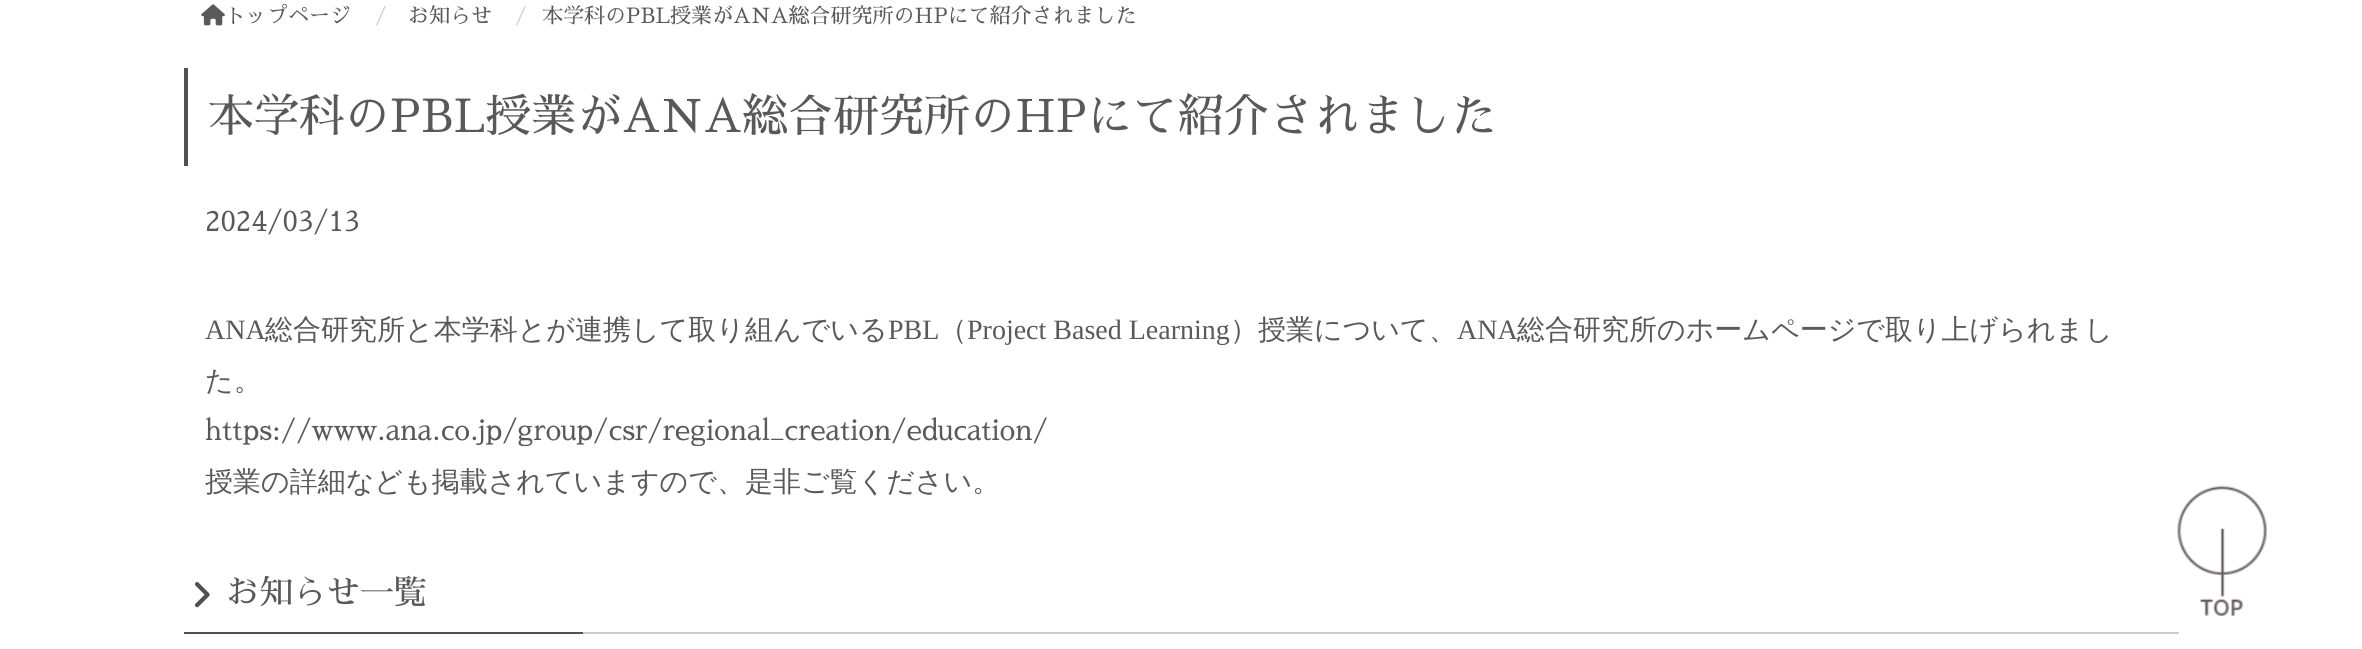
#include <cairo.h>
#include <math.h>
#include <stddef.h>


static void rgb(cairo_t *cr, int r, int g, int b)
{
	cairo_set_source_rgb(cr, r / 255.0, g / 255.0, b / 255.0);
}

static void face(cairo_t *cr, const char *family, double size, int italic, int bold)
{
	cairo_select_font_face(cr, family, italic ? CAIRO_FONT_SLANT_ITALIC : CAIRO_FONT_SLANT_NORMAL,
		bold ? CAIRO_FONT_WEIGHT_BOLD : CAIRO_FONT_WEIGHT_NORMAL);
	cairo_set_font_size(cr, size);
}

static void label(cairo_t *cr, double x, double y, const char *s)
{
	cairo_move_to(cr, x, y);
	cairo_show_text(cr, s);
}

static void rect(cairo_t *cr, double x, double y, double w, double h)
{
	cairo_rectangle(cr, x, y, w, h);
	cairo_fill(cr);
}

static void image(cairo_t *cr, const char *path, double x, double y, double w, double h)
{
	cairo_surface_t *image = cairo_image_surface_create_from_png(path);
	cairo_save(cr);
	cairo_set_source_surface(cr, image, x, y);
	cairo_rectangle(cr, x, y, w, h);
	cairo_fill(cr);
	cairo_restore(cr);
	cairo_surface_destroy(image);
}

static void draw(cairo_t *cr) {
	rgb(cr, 255, 255, 255);
	cairo_paint(cr);
	image(cr, "image0.png", 201, 4, 24, 22);
	face(cr, "Sawarabi Mincho", 21, 0, 0);
	rgb(cr, 89, 89, 89);
	label(cr, 225, 23, "トップページ");
	rgb(cr, 204, 204, 204);
	label(cr, 375, 23, "/");
	rgb(cr, 89, 89, 89);
	label(cr, 408, 23, "お知らせ");
	rgb(cr, 204, 204, 204);
	label(cr, 515, 23, "/");
	rgb(cr, 89, 89, 89);
	label(cr, 542, 23, "本学科のPBL授業がANA総合研究所のHPにて紹介されました");
	rgb(cr, 81, 81, 81);
	rect(cr, 184, 68, 4, 98);
	face(cr, "Sawarabi Mincho", 45.5, 0, 0);
	rgb(cr, 89, 89, 89);
	label(cr, 208, 132, "本学科のPBL授業がANA総合研究所のHPにて紹介されました");
	face(cr, "Sawarabi Mincho", 28, 0, 0);
	label(cr, 205, 231, "2024/03/13");
	face(cr, "Liberation Serif", 28, 0, 0);
	label(cr, 205, 339, "ANA");
	face(cr, "WenQuanYi Zen Hei Medium", 28, 0, 0);
	label(cr, 265, 339, "総合研究所と本学科とが連携して取り組んでいる");
	face(cr, "Liberation Serif", 28, 0, 0);
	label(cr, 888, 339, "PBL");
	face(cr, "WenQuanYi Zen Hei Medium", 28, 0, 0);
	label(cr, 939, 339, "（");
	face(cr, "Liberation Serif", 28, 0, 0);
	label(cr, 967, 339, "Project Based Learning");
	face(cr, "WenQuanYi Zen Hei Medium", 28, 0, 0);
	label(cr, 1230, 339, "）授業について、");
	face(cr, "Liberation Serif", 28, 0, 0);
	label(cr, 1457, 339, "ANA");
	face(cr, "WenQuanYi Zen Hei Medium", 28, 0, 0);
	label(cr, 1517, 339, "総合研究所のホームページで取り上げられまし");
	label(cr, 205, 390, "た。");
	face(cr, "Sawarabi Mincho", 28, 0, 0);
	label(cr, 205, 440, "https://www.ana.co.jp/group/csr/regional_creation/education/");
	face(cr, "WenQuanYi Zen Hei Medium", 28, 0, 0);
	label(cr, 205, 491, "授業の詳細なども掲載されていますので、是非ご覧ください。");
	rgb(cr, 204, 204, 204);
	rect(cr, 583, 632, 1596, 2);
	image(cr, "image1.png", 195, 582, 15, 26);
	face(cr, "Sawarabi Mincho", 33.5, 0, 0);
	rgb(cr, 89, 89, 89);
	label(cr, 226, 604, "お知らせ一覧");
	rgb(cr, 81, 81, 81);
	rect(cr, 184, 632, 399, 2);
	image(cr, "image2.png", 2177, 485, 91, 131);
}

int main(void) {
	cairo_surface_t *surface = cairo_image_surface_create(CAIRO_FORMAT_RGB24, 2362, 649);
	cairo_t *cr = cairo_create(surface);
	cairo_font_options_t *options = cairo_font_options_create();
	cairo_font_options_set_hint_metrics(options, CAIRO_HINT_METRICS_OFF);
	cairo_font_options_set_hint_style(options, CAIRO_HINT_STYLE_NONE);
	cairo_set_font_options(cr, options);
	cairo_set_miter_limit(cr, 4);
	draw(cr);
	cairo_surface_write_to_png(surface, "render.png");
	cairo_font_options_destroy(options);
	cairo_destroy(cr);
	cairo_surface_destroy(surface);
	return 0;
}
